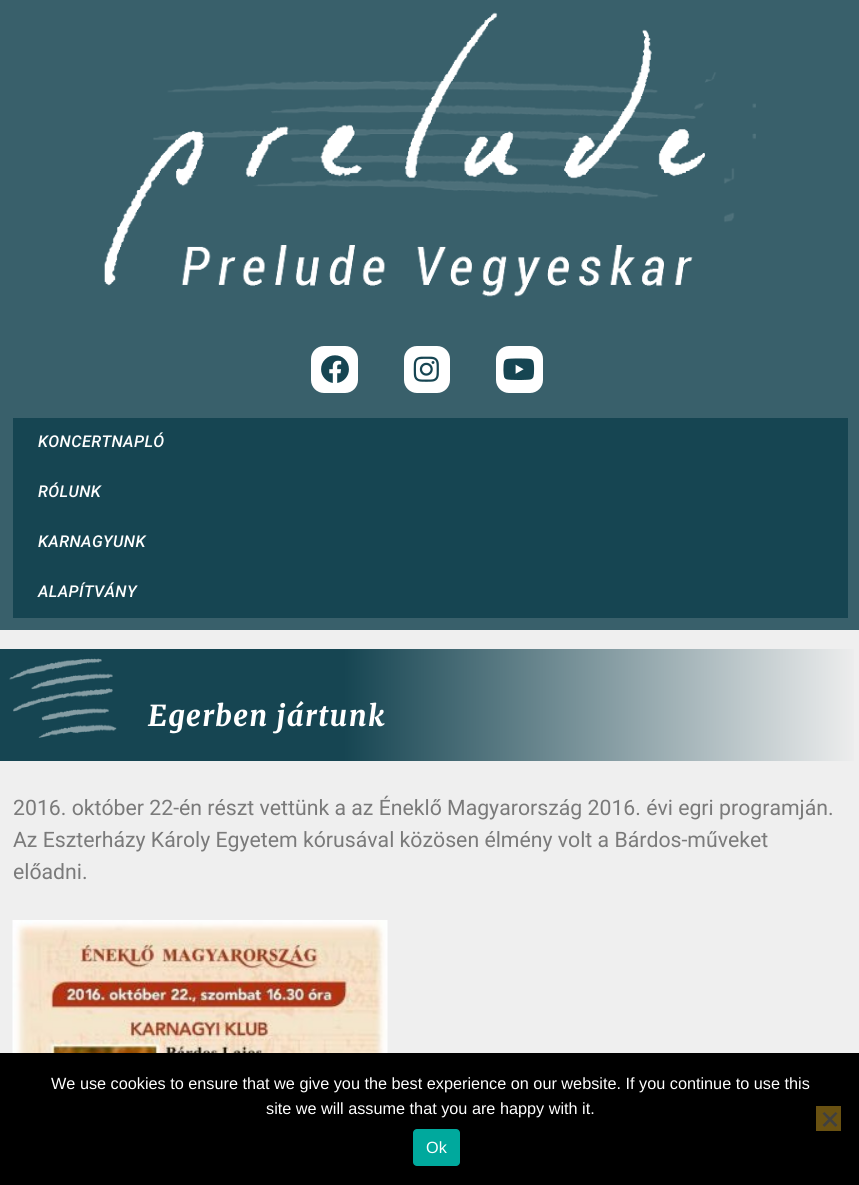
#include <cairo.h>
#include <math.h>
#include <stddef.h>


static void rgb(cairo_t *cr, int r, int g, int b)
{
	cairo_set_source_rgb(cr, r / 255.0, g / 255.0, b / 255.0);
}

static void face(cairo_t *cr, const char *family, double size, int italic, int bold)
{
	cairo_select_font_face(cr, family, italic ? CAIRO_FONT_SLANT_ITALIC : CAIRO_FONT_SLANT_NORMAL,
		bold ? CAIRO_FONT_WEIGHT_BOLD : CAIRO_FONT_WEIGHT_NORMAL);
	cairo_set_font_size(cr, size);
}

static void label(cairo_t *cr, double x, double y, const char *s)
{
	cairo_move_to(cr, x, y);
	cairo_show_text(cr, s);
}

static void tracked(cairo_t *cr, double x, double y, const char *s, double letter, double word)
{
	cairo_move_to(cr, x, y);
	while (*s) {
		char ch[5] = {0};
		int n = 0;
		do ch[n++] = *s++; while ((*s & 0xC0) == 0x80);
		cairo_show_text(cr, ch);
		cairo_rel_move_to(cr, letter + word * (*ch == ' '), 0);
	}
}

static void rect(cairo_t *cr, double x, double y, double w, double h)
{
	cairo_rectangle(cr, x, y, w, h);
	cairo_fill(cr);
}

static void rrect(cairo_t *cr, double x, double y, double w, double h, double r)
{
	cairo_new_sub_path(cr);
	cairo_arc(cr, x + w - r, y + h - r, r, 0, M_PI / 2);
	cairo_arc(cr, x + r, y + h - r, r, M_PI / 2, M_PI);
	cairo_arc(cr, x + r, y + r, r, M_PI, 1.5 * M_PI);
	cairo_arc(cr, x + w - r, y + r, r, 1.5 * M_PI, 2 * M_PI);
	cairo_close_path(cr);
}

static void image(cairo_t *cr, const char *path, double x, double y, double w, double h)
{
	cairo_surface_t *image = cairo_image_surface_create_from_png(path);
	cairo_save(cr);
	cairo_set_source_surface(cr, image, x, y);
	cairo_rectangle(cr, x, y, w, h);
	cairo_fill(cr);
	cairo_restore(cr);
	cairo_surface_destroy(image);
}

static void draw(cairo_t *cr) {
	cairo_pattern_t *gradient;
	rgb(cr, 239, 239, 239);
	cairo_paint(cr);
	rgb(cr, 57, 96, 107);
	rect(cr, 0, 0, 859, 630);
	image(cr, "image0.png", 104, 12, 652, 285);
	rgb(cr, 255, 255, 255);
	rrect(cr, 311, 346, 47, 47, 13);
	cairo_fill(cr);
	image(cr, "image1.png", 321, 355, 28, 28);
	rrect(cr, 404, 346, 46, 47, 13);
	cairo_fill(cr);
	image(cr, "image2.png", 413, 356, 26, 26);
	rrect(cr, 496, 346, 47, 47, 13);
	cairo_fill(cr);
	image(cr, "image3.png", 503, 358, 32, 22);
	rgb(cr, 22, 69, 82);
	rect(cr, 13, 418, 835, 200);
	face(cr, "Roboto Medium", 16.25, 1, 0);
	rgb(cr, 255, 255, 255);
	tracked(cr, 38, 447, "KONCERTNAPLÓ", 0.4, 0);
	tracked(cr, 38, 497, "RÓLUNK", 0.4, 0);
	tracked(cr, 38, 547, "KARNAGYUNK", 0.4, 0);
	tracked(cr, 38, 597, "ALAPÍTVÁNY", 0.4, 0);
	gradient = cairo_pattern_create_linear(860, 705, 0, 705);
	cairo_pattern_add_color_stop_rgba(gradient, 0, 0.937, 0.937, 0.937, 1);
	cairo_pattern_add_color_stop_rgba(gradient, 0.6, 0.086, 0.271, 0.322, 1);
	cairo_set_source(cr, gradient);
	cairo_pattern_destroy(gradient);
	rect(cr, 0, 649, 854, 112);
	image(cr, "image4.png", 9, 658, 108, 80);
	face(cr, "Merriweather ExtraBold", 28.75, 1, 0);
	rgb(cr, 255, 255, 255);
	tracked(cr, 148, 726, "Egerben jártunk", 1.4, 0);
	face(cr, "Roboto", 21.25, 0, 0);
	rgb(cr, 122, 122, 122);
	label(cr, 13, 815, "2016. október 22-én részt vettünk a az Éneklő Magyarország 2016. évi egri programján.");
	label(cr, 13, 847, "Az Eszterházy Károly Egyetem kórusával közösen élmény volt a Bárdos-műveket");
	label(cr, 13, 879, "előadni.");
	image(cr, "image5.png", 12, 920, 376, 133);
	rgb(cr, 0, 0, 0);
	rect(cr, 0, 1053, 859, 132);
	face(cr, "Liberation Sans", 16.25, 0, 0);
	rgb(cr, 255, 255, 255);
	label(cr, 51, 1089, "We use cookies to ensure that we give you the best experience on our website. If you continue to use this");
	label(cr, 266, 1114, "site we will assume that you are happy with it.");
	rgb(cr, 105, 81, 18);
	rect(cr, 816, 1106, 25, 25);
	rgb(cr, 64, 64, 64);
	cairo_new_path(cr);
	cairo_move_to(cr, 835.5, 1112);
	cairo_line_to(cr, 837.5, 1113.5);
	cairo_line_to(cr, 824.5, 1127);
	cairo_line_to(cr, 822.5, 1125);
	cairo_close_path(cr);
	cairo_fill(cr);
	cairo_new_path(cr);
	cairo_move_to(cr, 822.5, 1113.5);
	cairo_line_to(cr, 824.5, 1112);
	cairo_line_to(cr, 837.5, 1125);
	cairo_line_to(cr, 835.5, 1127);
	cairo_close_path(cr);
	cairo_fill(cr);
	rgb(cr, 0, 169, 157);
	rrect(cr, 413, 1129, 47, 37, 4);
	cairo_fill(cr);
	rgb(cr, 255, 255, 255);
	label(cr, 426, 1153, "Ok");
}

int main(void) {
	cairo_surface_t *surface = cairo_image_surface_create(CAIRO_FORMAT_RGB24, 859, 1185);
	cairo_t *cr = cairo_create(surface);
	cairo_font_options_t *options = cairo_font_options_create();
	cairo_font_options_set_hint_metrics(options, CAIRO_HINT_METRICS_OFF);
	cairo_font_options_set_hint_style(options, CAIRO_HINT_STYLE_NONE);
	cairo_set_font_options(cr, options);
	cairo_set_miter_limit(cr, 4);
	draw(cr);
	cairo_surface_write_to_png(surface, "render.png");
	cairo_font_options_destroy(options);
	cairo_destroy(cr);
	cairo_surface_destroy(surface);
	return 0;
}
